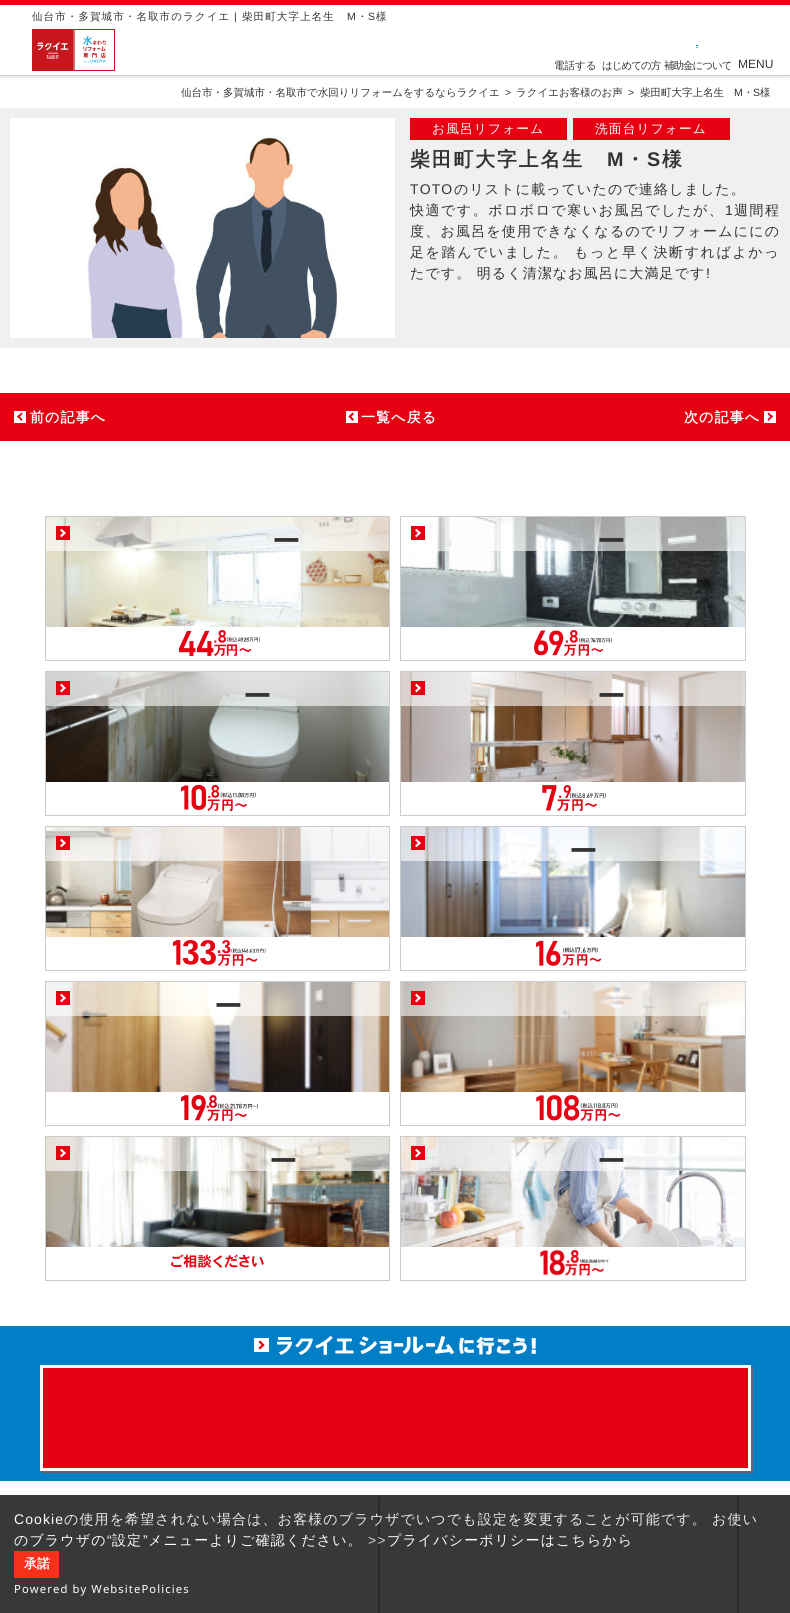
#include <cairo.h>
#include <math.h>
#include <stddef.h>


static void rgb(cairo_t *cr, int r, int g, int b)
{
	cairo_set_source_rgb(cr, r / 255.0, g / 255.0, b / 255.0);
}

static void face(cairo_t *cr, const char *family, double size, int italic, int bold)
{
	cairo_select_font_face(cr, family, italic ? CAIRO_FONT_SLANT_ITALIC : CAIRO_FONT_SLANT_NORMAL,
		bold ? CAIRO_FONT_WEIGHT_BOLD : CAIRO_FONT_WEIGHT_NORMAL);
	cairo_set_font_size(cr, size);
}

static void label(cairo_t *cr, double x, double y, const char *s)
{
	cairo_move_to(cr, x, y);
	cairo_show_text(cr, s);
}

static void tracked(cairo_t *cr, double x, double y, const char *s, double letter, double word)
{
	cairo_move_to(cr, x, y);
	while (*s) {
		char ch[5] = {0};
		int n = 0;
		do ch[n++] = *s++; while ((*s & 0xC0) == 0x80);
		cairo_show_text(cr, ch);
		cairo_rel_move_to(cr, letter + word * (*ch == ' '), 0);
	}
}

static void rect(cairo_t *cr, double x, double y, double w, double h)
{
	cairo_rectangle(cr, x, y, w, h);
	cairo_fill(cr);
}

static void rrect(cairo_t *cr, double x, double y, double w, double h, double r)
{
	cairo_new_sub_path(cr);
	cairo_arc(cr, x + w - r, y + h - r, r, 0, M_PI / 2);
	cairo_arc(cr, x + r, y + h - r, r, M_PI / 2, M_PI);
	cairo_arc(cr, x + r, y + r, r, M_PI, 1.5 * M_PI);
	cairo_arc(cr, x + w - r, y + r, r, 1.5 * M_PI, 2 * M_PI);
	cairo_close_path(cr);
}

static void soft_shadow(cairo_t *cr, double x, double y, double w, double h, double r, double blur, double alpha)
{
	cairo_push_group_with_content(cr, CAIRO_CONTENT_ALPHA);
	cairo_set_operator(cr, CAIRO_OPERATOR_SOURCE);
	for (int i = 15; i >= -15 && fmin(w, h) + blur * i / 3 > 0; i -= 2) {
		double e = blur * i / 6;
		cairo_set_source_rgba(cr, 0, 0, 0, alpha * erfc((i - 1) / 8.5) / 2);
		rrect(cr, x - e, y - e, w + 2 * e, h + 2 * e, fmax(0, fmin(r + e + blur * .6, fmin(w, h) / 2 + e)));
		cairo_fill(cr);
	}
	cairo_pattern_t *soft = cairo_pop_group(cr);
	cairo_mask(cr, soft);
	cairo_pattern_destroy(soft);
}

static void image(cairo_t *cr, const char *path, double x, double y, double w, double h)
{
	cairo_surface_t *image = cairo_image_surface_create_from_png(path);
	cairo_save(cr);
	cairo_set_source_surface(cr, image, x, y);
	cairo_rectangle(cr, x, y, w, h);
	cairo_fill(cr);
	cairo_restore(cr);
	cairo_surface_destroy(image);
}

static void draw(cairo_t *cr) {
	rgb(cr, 255, 255, 255);
	cairo_paint(cr);
	rgb(cr, 56, 56, 56);
	rect(cr, 0, 1495, 790, 118);
	cairo_save(cr);
	cairo_rectangle(cr, 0, 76, 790, 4);
	cairo_clip(cr);
	rgb(cr, 0, 0, 0);
	soft_shadow(cr, 0, 2, 790, 76, 0, 2, 0.1);
	cairo_restore(cr);
	rgb(cr, 230, 0, 18);
	rect(cr, 0, 0, 790, 5);
	rgb(cr, 204, 204, 204);
	rect(cr, 0, 75, 790, 1);
	face(cr, "WenQuanYi Zen Hei Medium", 10.5, 0, 0);
	rgb(cr, 51, 51, 51);
	tracked(cr, 32, 20, "仙台市・多賀城市・名取市のラクイエ", 1.1, 0);
	face(cr, "Liberation Sans", 10.5, 0, 0);
	tracked(cr, 234, 20, "|", 1.1, 0);
	face(cr, "WenQuanYi Zen Hei Medium", 10.5, 0, 0);
	tracked(cr, 242, 20, "柴田町大字上名生", 1.1, 0);
	face(cr, "Liberation Sans", 10.5, 0, 0);
	tracked(cr, 347, 20, "M", 1.1, 0);
	face(cr, "WenQuanYi Zen Hei Medium", 10.5, 0, 0);
	tracked(cr, 357, 20, "・", 1.1, 0);
	face(cr, "Liberation Sans", 10.5, 0, 0);
	tracked(cr, 368, 20, "S", 1.1, 0);
	face(cr, "WenQuanYi Zen Hei Medium", 10.5, 0, 0);
	tracked(cr, 376, 20, "様", 1.1, 0);
	image(cr, "image0.png", 32, 29, 83, 42);
	label(cr, 554, 69, "電話する");
	tracked(cr, 602, 69, "はじめての方", -1, 0);
	image(cr, "image1.png", 696, 45, 2, 3);
	tracked(cr, 664, 69, "補助金について", -1, 0);
	face(cr, "Liberation Sans", 12, 0, 0);
	label(cr, 738, 68, "MENU");
	face(cr, "WenQuanYi Zen Hei Medium", 10.5, 0, 0);
	label(cr, 181, 96, "仙台市・多賀城市・名取市で水回りリフォームをするならラクイエ");
	face(cr, "Liberation Sans", 10.5, 0, 0);
	label(cr, 505, 96, ">");
	face(cr, "WenQuanYi Zen Hei Medium", 10.5, 0, 0);
	label(cr, 516, 96, "ラクイエお客様のお声");
	face(cr, "Liberation Sans", 10.5, 0, 0);
	label(cr, 628, 96, ">");
	face(cr, "WenQuanYi Zen Hei Medium", 10.5, 0, 0);
	label(cr, 640, 96, "柴田町大字上名生");
	face(cr, "Liberation Sans", 10.5, 0, 0);
	label(cr, 734, 96, "M");
	face(cr, "WenQuanYi Zen Hei Medium", 10.5, 0, 0);
	label(cr, 743, 96, "・");
	face(cr, "Liberation Sans", 10.5, 0, 0);
	label(cr, 753, 96, "S");
	face(cr, "WenQuanYi Zen Hei Medium", 10.5, 0, 0);
	label(cr, 760, 96, "様");
	rgb(cr, 240, 240, 240);
	rect(cr, 0, 108, 790, 240);
	image(cr, "image2.png", 10, 118, 385, 220);
	rgb(cr, 230, 0, 18);
	rect(cr, 410, 118, 157, 22);
	face(cr, "WenQuanYi Zen Hei Medium", 12.75, 0, 0);
	rgb(cr, 255, 255, 255);
	tracked(cr, 432, 133, "お風呂リフォーム", 1.1, 0);
	rgb(cr, 230, 0, 18);
	rect(cr, 573, 118, 157, 22);
	rgb(cr, 255, 255, 255);
	tracked(cr, 595, 133, "洗面台リフォーム", 1.1, 0);
	face(cr, "WenQuanYi Zen Hei", 19.75, 0, 1);
	rgb(cr, 51, 51, 51);
	tracked(cr, 410, 166, "柴田町大字上名生", 2, 0);
	face(cr, "Liberation Sans", 19.75, 0, 1);
	tracked(cr, 607, 166, "M", 2, 0);
	face(cr, "WenQuanYi Zen Hei", 19.75, 0, 1);
	tracked(cr, 625, 166, "・", 2, 0);
	face(cr, "Liberation Sans", 19.75, 0, 1);
	tracked(cr, 647, 166, "S", 2, 0);
	face(cr, "WenQuanYi Zen Hei", 19.75, 0, 1);
	tracked(cr, 662, 166, "様", 2, 0);
	face(cr, "Liberation Sans", 14, 0, 0);
	tracked(cr, 410, 194, "TOTO", 1.1, 0);
	face(cr, "WenQuanYi Zen Hei Medium", 14, 0, 0);
	tracked(cr, 454, 194, "のリストに載っていたので連絡しました。", 1.1, 0);
	tracked(cr, 410, 215, "快適です。ボロボロで寒いお風呂でしたが、", 1.5, 0);
	face(cr, "Liberation Sans", 14, 0, 0);
	tracked(cr, 725, 215, "1", 1.5, 0);
	face(cr, "WenQuanYi Zen Hei Medium", 14, 0, 0);
	tracked(cr, 734, 215, "週間程", 1.5, 0);
	tracked(cr, 410, 236, "度、お風呂を使用できなくなるのでリフォームににの", 1.2, 0);
	tracked(cr, 410, 257, "足を踏んでいました。 もっと早く決断すればよかっ", 1.6, 0);
	tracked(cr, 410, 278, "たです。 明るく清潔なお風呂に大満足です", 1.1, 0);
	face(cr, "Liberation Sans", 14, 0, 0);
	tracked(cr, 706, 278, "!", 1.1, 0);
	rgb(cr, 230, 0, 18);
	rect(cr, 0, 393, 790, 48);
	rgb(cr, 255, 255, 255);
	rect(cr, 14, 411, 12, 12);
	face(cr, "WenQuanYi Zen Hei", 14, 0, 1);
	tracked(cr, 30, 422, "前の記事へ", 1.1, 0);
	rgb(cr, 230, 0, 18);
	cairo_new_path(cr);
	cairo_move_to(cr, 18.5, 415);
	cairo_line_to(cr, 22.5, 419.5);
	cairo_line_to(cr, 21.5, 421);
	cairo_line_to(cr, 17, 416.5);
	cairo_close_path(cr);
	cairo_fill(cr);
	cairo_new_path(cr);
	cairo_move_to(cr, 21.5, 412.5);
	cairo_line_to(cr, 22.5, 414);
	cairo_line_to(cr, 18.5, 418);
	cairo_line_to(cr, 17, 416.5);
	cairo_close_path(cr);
	cairo_fill(cr);
	rgb(cr, 255, 255, 255);
	rect(cr, 346, 411, 12, 12);
	tracked(cr, 361, 422, "一覧へ戻る", 1.1, 0);
	rgb(cr, 230, 0, 18);
	cairo_new_path(cr);
	cairo_move_to(cr, 350, 415);
	cairo_line_to(cr, 354, 419.5);
	cairo_line_to(cr, 352.5, 421);
	cairo_line_to(cr, 348.5, 416.5);
	cairo_close_path(cr);
	cairo_fill(cr);
	cairo_new_path(cr);
	cairo_move_to(cr, 352.5, 412.5);
	cairo_line_to(cr, 354, 414);
	cairo_line_to(cr, 350, 418);
	cairo_line_to(cr, 348.5, 416.5);
	cairo_close_path(cr);
	cairo_fill(cr);
	rgb(cr, 255, 255, 255);
	tracked(cr, 684, 422, "次の記事へ", 1.1, 0);
	rect(cr, 764, 411, 12, 12);
	rgb(cr, 230, 0, 18);
	cairo_new_path(cr);
	cairo_move_to(cr, 768.5, 412.5);
	cairo_line_to(cr, 773, 416.5);
	cairo_line_to(cr, 771.5, 418);
	cairo_line_to(cr, 767.5, 414);
	cairo_close_path(cr);
	cairo_fill(cr);
	cairo_new_path(cr);
	cairo_move_to(cr, 771.5, 415);
	cairo_line_to(cr, 773, 416.5);
	cairo_line_to(cr, 768.5, 421);
	cairo_line_to(cr, 767.5, 419.5);
	cairo_close_path(cr);
	cairo_fill(cr);
	cairo_rectangle(cr, 45.5, 516.5, 344, 144);
	rgb(cr, 204, 204, 204);
	cairo_set_line_width(cr, 1);
	cairo_stroke(cr);
	image(cr, "image3.png", 46, 517, 343, 110);
	cairo_set_source_rgba(cr, 1, 1, 1, 0.6);
	rect(cr, 46, 517, 343, 34);
	image(cr, "image4.png", 56, 526, 14, 14);
	face(cr, "WenQuanYi Zen Hei", 28, 0, 1);
	rgb(cr, 51, 51, 51);
	label(cr, 272, 551, "ー");
	image(cr, "image5.png", 179, 630, 81, 26);
	cairo_rectangle(cr, 400.5, 516.5, 345, 144);
	rgb(cr, 204, 204, 204);
	cairo_stroke(cr);
	image(cr, "image6.png", 401, 517, 344, 110);
	cairo_set_source_rgba(cr, 1, 1, 1, 0.6);
	rect(cr, 434, 517, 311, 34);
	image(cr, "image4.png", 411, 526, 14, 14);
	rgb(cr, 51, 51, 51);
	label(cr, 597, 551, "ー");
	image(cr, "image7.png", 534, 630, 78, 26);
	cairo_rectangle(cr, 45.5, 671.5, 344, 144);
	rgb(cr, 204, 204, 204);
	cairo_stroke(cr);
	image(cr, "image8.png", 46, 672, 343, 110);
	cairo_set_source_rgba(cr, 1, 1, 1, 0.6);
	rect(cr, 46, 672, 343, 34);
	image(cr, "image4.png", 56, 681, 14, 14);
	rgb(cr, 51, 51, 51);
	label(cr, 243, 706, "ー");
	image(cr, "image9.png", 181, 785, 75, 26);
	cairo_rectangle(cr, 400.5, 671.5, 345, 144);
	rgb(cr, 204, 204, 204);
	cairo_stroke(cr);
	image(cr, "image10.png", 401, 672, 344, 110);
	cairo_set_source_rgba(cr, 1, 1, 1, 0.6);
	rect(cr, 401, 672, 344, 34);
	image(cr, "image4.png", 411, 681, 14, 14);
	rgb(cr, 51, 51, 51);
	label(cr, 597, 706, "ー");
	image(cr, "image11.png", 542, 785, 64, 26);
	cairo_rectangle(cr, 45.5, 826.5, 344, 144);
	rgb(cr, 204, 204, 204);
	cairo_stroke(cr);
	image(cr, "image12.png", 46, 827, 343, 110);
	cairo_set_source_rgba(cr, 1, 1, 1, 0.6);
	rect(cr, 46, 827, 343, 34);
	image(cr, "image4.png", 56, 836, 14, 14);
	image(cr, "image13.png", 173, 940, 93, 26);
	cairo_rectangle(cr, 400.5, 826.5, 345, 144);
	rgb(cr, 204, 204, 204);
	cairo_stroke(cr);
	image(cr, "image14.png", 401, 827, 344, 110);
	cairo_set_source_rgba(cr, 1, 1, 1, 0.6);
	rect(cr, 401, 827, 344, 34);
	image(cr, "image4.png", 411, 836, 14, 14);
	rgb(cr, 51, 51, 51);
	label(cr, 569, 861, "ー");
	image(cr, "image15.png", 536, 940, 66, 26);
	cairo_rectangle(cr, 45.5, 981.5, 344, 144);
	rgb(cr, 204, 204, 204);
	cairo_stroke(cr);
	image(cr, "image16.png", 46, 982, 343, 110);
	cairo_set_source_rgba(cr, 1, 1, 1, 0.6);
	rect(cr, 46, 982, 343, 34);
	image(cr, "image4.png", 56, 991, 14, 14);
	rgb(cr, 51, 51, 51);
	label(cr, 214, 1016, "ー");
	image(cr, "image17.png", 181, 1095, 77, 26);
	cairo_rectangle(cr, 400.5, 981.5, 345, 144);
	rgb(cr, 204, 204, 204);
	cairo_stroke(cr);
	image(cr, "image18.png", 401, 982, 344, 110);
	cairo_set_source_rgba(cr, 1, 1, 1, 0.6);
	rect(cr, 401, 982, 344, 34);
	image(cr, "image4.png", 411, 991, 14, 14);
	image(cr, "image19.png", 536, 1095, 85, 26);
	cairo_rectangle(cr, 45.5, 1136.5, 344, 144);
	rgb(cr, 204, 204, 204);
	cairo_stroke(cr);
	image(cr, "image20.png", 46, 1137, 343, 110);
	cairo_set_source_rgba(cr, 1, 1, 1, 0.6);
	rect(cr, 46, 1137, 343, 34);
	image(cr, "image4.png", 56, 1146, 14, 14);
	rgb(cr, 51, 51, 51);
	label(cr, 269, 1171, "ー");
	image(cr, "image21.png", 171, 1254, 93, 14);
	cairo_rectangle(cr, 400.5, 1136.5, 345, 144);
	rgb(cr, 204, 204, 204);
	cairo_stroke(cr);
	image(cr, "image22.png", 401, 1137, 344, 110);
	cairo_set_source_rgba(cr, 1, 1, 1, 0.6);
	rect(cr, 401, 1137, 344, 34);
	image(cr, "image4.png", 411, 1146, 14, 14);
	rgb(cr, 51, 51, 51);
	label(cr, 597, 1171, "ー");
	image(cr, "image23.png", 540, 1250, 69, 26);
	rgb(cr, 0, 127, 198);
	rect(cr, 0, 1326, 790, 155);
	image(cr, "image24.png", 254, 1336, 282, 19);
	rgb(cr, 102, 102, 102);
	cairo_new_path(cr);
	cairo_move_to(cr, 42, 1471);
	cairo_line_to(cr, 42, 1473);
	cairo_line_to(cr, 753, 1473);
	cairo_line_to(cr, 753, 1367);
	cairo_line_to(cr, 751, 1367);
	cairo_line_to(cr, 751, 1471);
	cairo_close_path(cr);
	cairo_fill(cr);
	rgb(cr, 230, 0, 18);
	cairo_rectangle(cr, 41.5, 1366.5, 708, 103);
	cairo_fill_preserve(cr);
	rgb(cr, 255, 255, 255);
	cairo_set_line_width(cr, 3);
	cairo_stroke(cr);
	rgb(cr, 41, 41, 41);
	cairo_new_path(cr);
	cairo_move_to(cr, 43, 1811);
	cairo_line_to(cr, 43, 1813);
	cairo_line_to(cr, 380, 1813);
	cairo_line_to(cr, 380, 1497);
	cairo_line_to(cr, 378, 1497);
	cairo_line_to(cr, 378, 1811);
	cairo_close_path(cr);
	cairo_fill(cr);
	cairo_new_path(cr);
	cairo_move_to(cr, 402, 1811);
	cairo_line_to(cr, 402, 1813);
	cairo_line_to(cr, 739, 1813);
	cairo_line_to(cr, 739, 1497);
	cairo_line_to(cr, 737, 1497);
	cairo_line_to(cr, 737, 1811);
	cairo_close_path(cr);
	cairo_fill(cr);
	face(cr, "Liberation Sans", 14, 0, 0);
	rgb(cr, 255, 255, 255);
	tracked(cr, 14, 1524, "Cookie", 1.1, 0);
	face(cr, "WenQuanYi Zen Hei Medium", 14, 0, 0);
	rgb(cr, 235, 235, 235);
	tracked(cr, 64, 1524, "の使用を希望されない場合は、お客様のブラウザでいつでも設定を変更することが可能です。 お使い", 1.1, 0);
	rgb(cr, 255, 255, 255);
	tracked(cr, 14, 1545, "のブラウザの", 1.1, 0);
	face(cr, "Liberation Sans", 14, 0, 0);
	tracked(cr, 107, 1545, "“", 1.1, 0);
	face(cr, "WenQuanYi Zen Hei Medium", 14, 0, 0);
	tracked(cr, 112, 1545, "設定", 1.1, 0);
	face(cr, "Liberation Sans", 14, 0, 0);
	tracked(cr, 143, 1545, "”", 1.1, 0);
	face(cr, "WenQuanYi Zen Hei Medium", 14, 0, 0);
	tracked(cr, 148, 1545, "メニューよりご確認ください。", 1.1, 0);
	face(cr, "Liberation Sans", 14, 0, 0);
	rgb(cr, 208, 208, 208);
	tracked(cr, 368, 1545, ">>", 1.1, 0);
	face(cr, "WenQuanYi Zen Hei Medium", 14, 0, 0);
	rgb(cr, 255, 255, 255);
	tracked(cr, 387, 1545, "プライバシーポリシーはこちらから", 1.1, 0);
	rgb(cr, 246, 48, 26);
	rect(cr, 14, 1551, 45, 27);
	face(cr, "WenQuanYi Zen Hei", 13, 0, 1);
	rgb(cr, 255, 255, 255);
	label(cr, 24, 1568, "承諾");
	face(cr, "Noto Sans", 11.25, 0, 0);
	tracked(cr, 14, 1593, "Powered by WebsitePolicies", 1.1, 0);
}

int main(void) {
	cairo_surface_t *surface = cairo_image_surface_create(CAIRO_FORMAT_RGB24, 790, 1613);
	cairo_t *cr = cairo_create(surface);
	cairo_font_options_t *options = cairo_font_options_create();
	cairo_font_options_set_hint_metrics(options, CAIRO_HINT_METRICS_OFF);
	cairo_font_options_set_hint_style(options, CAIRO_HINT_STYLE_NONE);
	cairo_set_font_options(cr, options);
	cairo_set_miter_limit(cr, 4);
	draw(cr);
	cairo_surface_write_to_png(surface, "render.png");
	cairo_font_options_destroy(options);
	cairo_destroy(cr);
	cairo_surface_destroy(surface);
	return 0;
}
